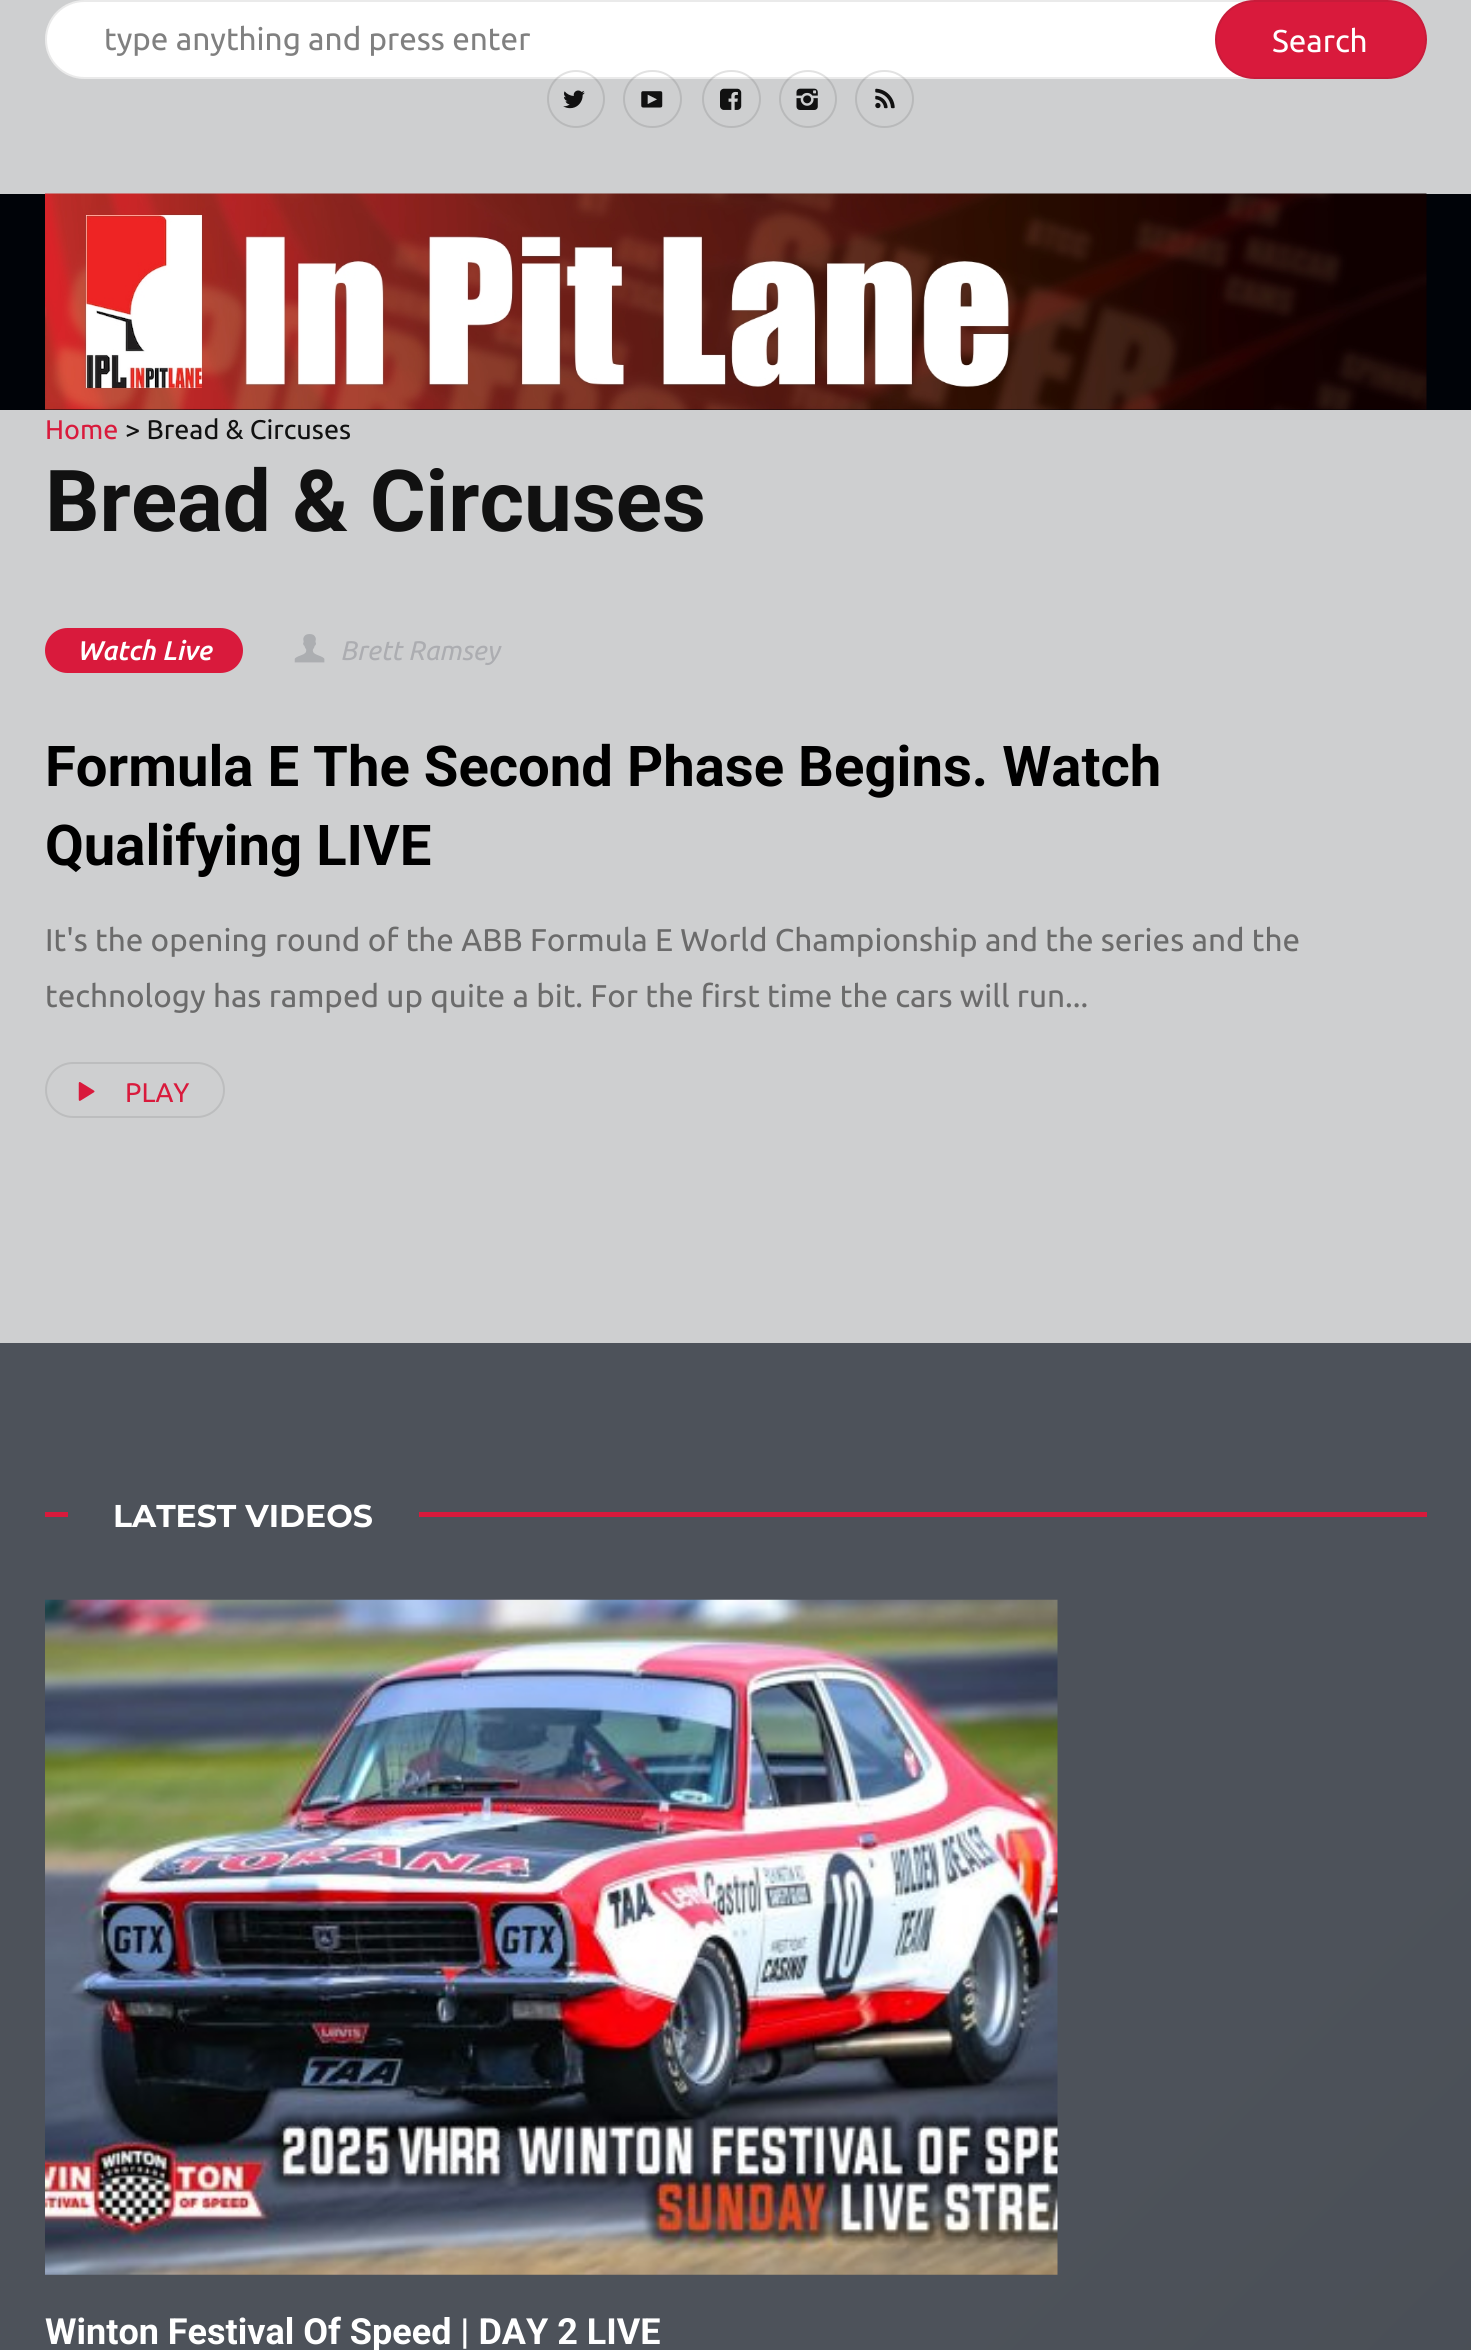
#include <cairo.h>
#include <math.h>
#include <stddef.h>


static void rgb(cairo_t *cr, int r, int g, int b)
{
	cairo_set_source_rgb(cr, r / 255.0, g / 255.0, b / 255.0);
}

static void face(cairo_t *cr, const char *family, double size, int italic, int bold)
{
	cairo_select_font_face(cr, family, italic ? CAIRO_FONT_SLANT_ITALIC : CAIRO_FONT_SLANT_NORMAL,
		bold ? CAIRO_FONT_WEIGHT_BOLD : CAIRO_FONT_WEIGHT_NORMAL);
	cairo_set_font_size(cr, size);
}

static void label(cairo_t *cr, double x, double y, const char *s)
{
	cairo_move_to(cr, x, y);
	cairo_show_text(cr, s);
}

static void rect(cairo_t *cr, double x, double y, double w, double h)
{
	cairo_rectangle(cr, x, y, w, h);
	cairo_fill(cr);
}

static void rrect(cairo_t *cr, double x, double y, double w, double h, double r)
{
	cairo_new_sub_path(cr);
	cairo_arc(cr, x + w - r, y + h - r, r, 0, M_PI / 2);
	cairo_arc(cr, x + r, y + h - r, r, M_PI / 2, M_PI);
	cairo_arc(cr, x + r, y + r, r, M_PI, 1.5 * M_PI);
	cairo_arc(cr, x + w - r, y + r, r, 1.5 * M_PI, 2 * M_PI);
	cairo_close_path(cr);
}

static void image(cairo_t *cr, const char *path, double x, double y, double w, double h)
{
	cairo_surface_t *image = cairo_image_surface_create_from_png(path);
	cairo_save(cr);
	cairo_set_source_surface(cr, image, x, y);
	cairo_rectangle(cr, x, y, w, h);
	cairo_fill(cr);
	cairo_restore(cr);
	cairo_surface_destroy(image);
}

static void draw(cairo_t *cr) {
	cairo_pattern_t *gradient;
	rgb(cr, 206, 207, 208);
	cairo_paint(cr);
	rgb(cr, 255, 255, 255);
	rrect(cr, 45, 0, 1382, 79, 39.5);
	cairo_fill(cr);
	rrect(cr, 46, 1, 1380, 77, 38.5);
	cairo_set_source_rgba(cr, 0.157, 0.157, 0.157, 0.1);
	cairo_stroke(cr);
	face(cr, "Ubuntu", 31.5, 0, 0);
	rgb(cr, 128, 128, 128);
	label(cr, 104, 50, "type anything and press enter");
	rgb(cr, 217, 26, 60);
	rrect(cr, 1215, 0, 212, 79, 39.5);
	cairo_fill(cr);
	rrect(cr, 1216, 1, 210, 77, 38.5);
	cairo_set_source_rgba(cr, 0.157, 0.157, 0.157, 0.1);
	cairo_stroke(cr);
	rgb(cr, 255, 255, 255);
	label(cr, 1272, 52, "Search");
	cairo_new_path(cr);
	cairo_arc(cr, 576, 99, 28, 0, 2 * M_PI);
	cairo_set_source_rgba(cr, 0.235, 0.235, 0.235, 0.15);
	cairo_stroke(cr);
	image(cr, "image0.png", 563, 90, 22, 19);
	rrect(cr, 624, 71, 57, 56, 28);
	cairo_stroke(cr);
	image(cr, "image1.png", 641, 91, 22, 17);
	rrect(cr, 703, 71, 57, 56, 28);
	cairo_stroke(cr);
	image(cr, "image2.png", 720, 88, 22, 22);
	cairo_arc(cr, 808, 99, 28, 0, 2 * M_PI);
	cairo_stroke(cr);
	image(cr, "image3.png", 796, 88, 22, 22);
	rrect(cr, 856, 71, 57, 56, 28);
	cairo_stroke(cr);
	image(cr, "image4.png", 875, 88, 20, 21);
	rgb(cr, 0, 3, 8);
	rect(cr, 0, 194, 1471, 216);
	image(cr, "image5.png", 45, 193, 1382, 217);
	face(cr, "Ubuntu", 27, 0, 0);
	rgb(cr, 217, 26, 60);
	label(cr, 45, 439, "Home");
	rgb(cr, 17, 17, 17);
	label(cr, 125, 439, "> Bread & Circuses");
	face(cr, "Roboto", 85.5, 0, 1);
	label(cr, 45, 531, "Bread & Circuses");
	rgb(cr, 217, 26, 60);
	rrect(cr, 45, 628, 198, 45, 22.5);
	cairo_fill(cr);
	face(cr, "Ubuntu Medium", 27, 1, 0);
	rgb(cr, 255, 255, 255);
	label(cr, 77, 660, "Watch Live");
	image(cr, "image6.png", 294, 634, 31, 29);
	face(cr, "Ubuntu", 27, 1, 0);
	rgb(cr, 172, 173, 177);
	label(cr, 340, 660, "Brett Ramsey");
	face(cr, "Roboto", 56.25, 0, 1);
	rgb(cr, 0, 0, 0);
	label(cr, 45, 786, "Formula E The Second Phase Begins. Watch");
	label(cr, 45, 865, "Qualifying LIVE");
	face(cr, "Ubuntu", 31.5, 0, 0);
	rgb(cr, 107, 107, 107);
	label(cr, 45, 951, "It's the opening round of the ABB Formula E World Championship and the series and the");
	label(cr, 45, 1007, "technology has ramped up quite a bit. For the first time the cars will run...");
	rrect(cr, 46, 1063, 178, 54, 27);
	rgb(cr, 188, 189, 190);
	cairo_stroke(cr);
	image(cr, "image7.png", 78, 1082, 17, 19);
	face(cr, "Ubuntu", 27, 0, 0);
	rgb(cr, 217, 26, 60);
	label(cr, 125, 1102, "PLAY");
	gradient = cairo_pattern_create_linear(-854, 2198, 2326, 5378);
	cairo_pattern_add_color_stop_rgba(gradient, 0, 0.302, 0.322, 0.353, 1);
	cairo_pattern_add_color_stop_rgba(gradient, 0.3, 0.302, 0.322, 0.353, 1);
	cairo_pattern_add_color_stop_rgba(gradient, 1, 0.208, 0.224, 0.243, 1);
	cairo_set_source(cr, gradient);
	cairo_pattern_destroy(gradient);
	rect(cr, 0, 1343, 1471, 1007);
	rgb(cr, 217, 26, 60);
	rect(cr, 45, 1512, 23, 5);
	face(cr, "Montserrat", 31.5, 0, 1);
	rgb(cr, 255, 255, 255);
	label(cr, 113, 1527, "LATEST VIDEOS");
	rgb(cr, 217, 26, 60);
	rect(cr, 419, 1512, 1008, 5);
	image(cr, "image8.png", 45, 1599, 1013, 676);
	face(cr, "Roboto", 36, 0, 1);
	rgb(cr, 255, 255, 255);
	label(cr, 45, 2344, "Winton Festival Of Speed | DAY 2 LIVE");
}

int main(void) {
	cairo_surface_t *surface = cairo_image_surface_create(CAIRO_FORMAT_RGB24, 1471, 2350);
	cairo_t *cr = cairo_create(surface);
	cairo_font_options_t *options = cairo_font_options_create();
	cairo_font_options_set_hint_metrics(options, CAIRO_HINT_METRICS_OFF);
	cairo_font_options_set_hint_style(options, CAIRO_HINT_STYLE_NONE);
	cairo_set_font_options(cr, options);
	cairo_set_miter_limit(cr, 4);
	draw(cr);
	cairo_surface_write_to_png(surface, "render.png");
	cairo_font_options_destroy(options);
	cairo_destroy(cr);
	cairo_surface_destroy(surface);
	return 0;
}
